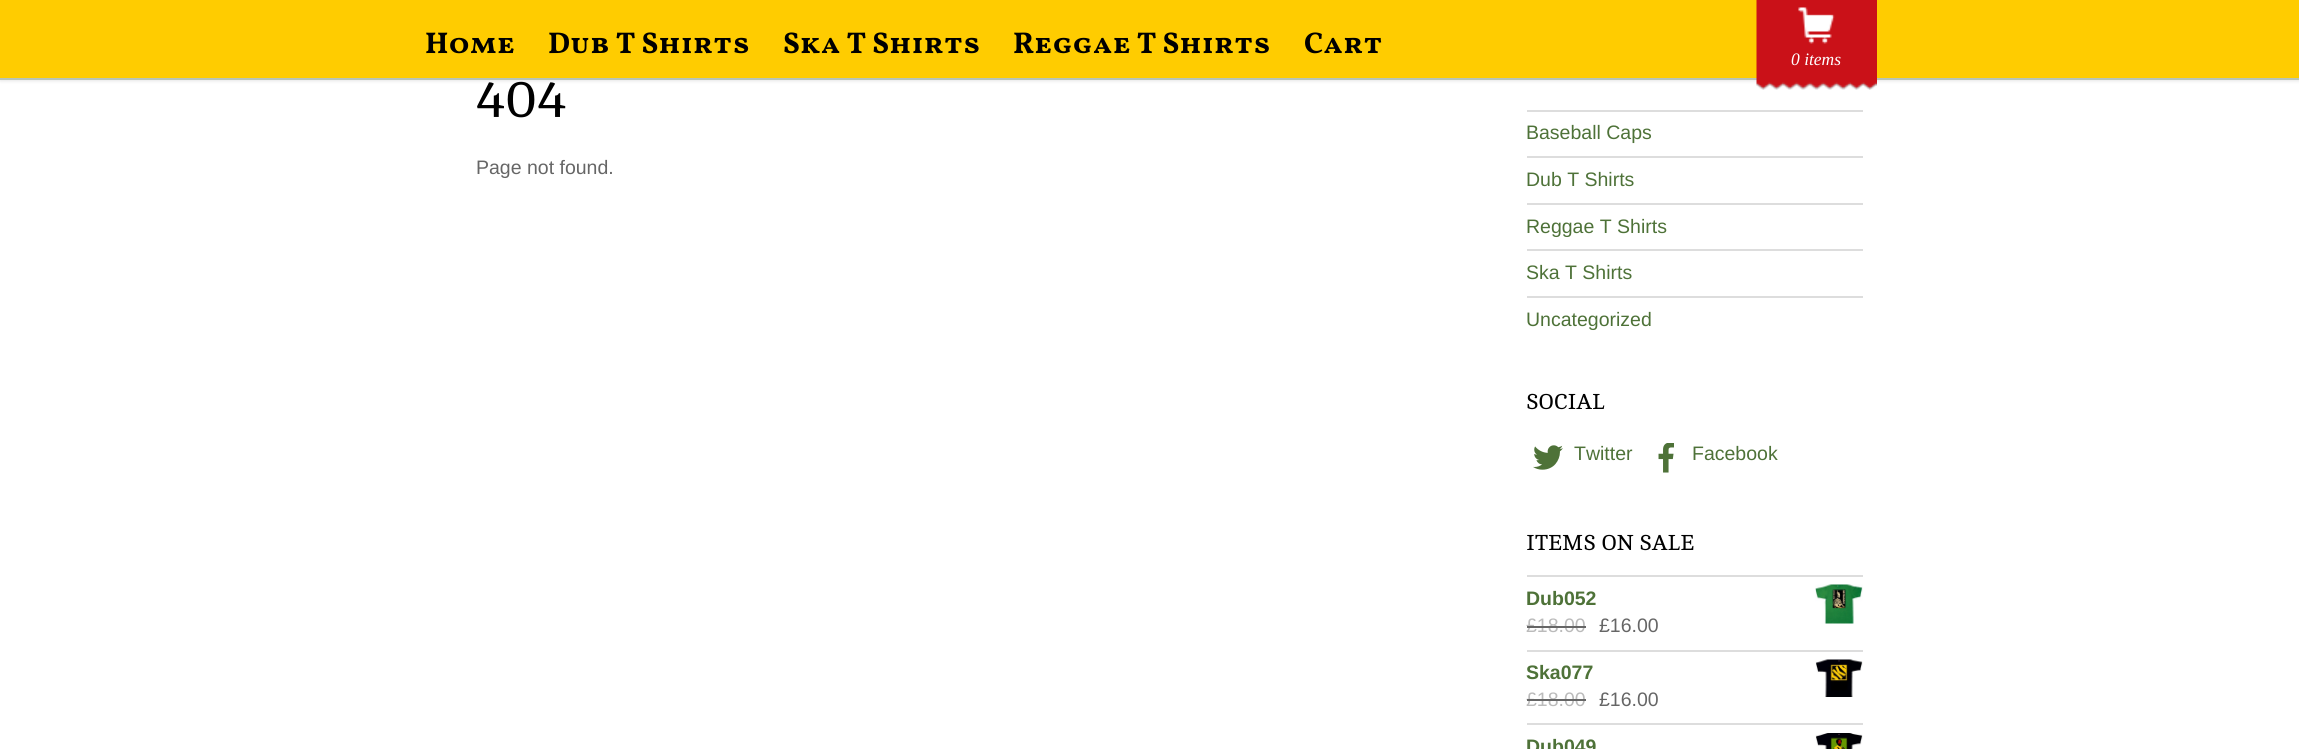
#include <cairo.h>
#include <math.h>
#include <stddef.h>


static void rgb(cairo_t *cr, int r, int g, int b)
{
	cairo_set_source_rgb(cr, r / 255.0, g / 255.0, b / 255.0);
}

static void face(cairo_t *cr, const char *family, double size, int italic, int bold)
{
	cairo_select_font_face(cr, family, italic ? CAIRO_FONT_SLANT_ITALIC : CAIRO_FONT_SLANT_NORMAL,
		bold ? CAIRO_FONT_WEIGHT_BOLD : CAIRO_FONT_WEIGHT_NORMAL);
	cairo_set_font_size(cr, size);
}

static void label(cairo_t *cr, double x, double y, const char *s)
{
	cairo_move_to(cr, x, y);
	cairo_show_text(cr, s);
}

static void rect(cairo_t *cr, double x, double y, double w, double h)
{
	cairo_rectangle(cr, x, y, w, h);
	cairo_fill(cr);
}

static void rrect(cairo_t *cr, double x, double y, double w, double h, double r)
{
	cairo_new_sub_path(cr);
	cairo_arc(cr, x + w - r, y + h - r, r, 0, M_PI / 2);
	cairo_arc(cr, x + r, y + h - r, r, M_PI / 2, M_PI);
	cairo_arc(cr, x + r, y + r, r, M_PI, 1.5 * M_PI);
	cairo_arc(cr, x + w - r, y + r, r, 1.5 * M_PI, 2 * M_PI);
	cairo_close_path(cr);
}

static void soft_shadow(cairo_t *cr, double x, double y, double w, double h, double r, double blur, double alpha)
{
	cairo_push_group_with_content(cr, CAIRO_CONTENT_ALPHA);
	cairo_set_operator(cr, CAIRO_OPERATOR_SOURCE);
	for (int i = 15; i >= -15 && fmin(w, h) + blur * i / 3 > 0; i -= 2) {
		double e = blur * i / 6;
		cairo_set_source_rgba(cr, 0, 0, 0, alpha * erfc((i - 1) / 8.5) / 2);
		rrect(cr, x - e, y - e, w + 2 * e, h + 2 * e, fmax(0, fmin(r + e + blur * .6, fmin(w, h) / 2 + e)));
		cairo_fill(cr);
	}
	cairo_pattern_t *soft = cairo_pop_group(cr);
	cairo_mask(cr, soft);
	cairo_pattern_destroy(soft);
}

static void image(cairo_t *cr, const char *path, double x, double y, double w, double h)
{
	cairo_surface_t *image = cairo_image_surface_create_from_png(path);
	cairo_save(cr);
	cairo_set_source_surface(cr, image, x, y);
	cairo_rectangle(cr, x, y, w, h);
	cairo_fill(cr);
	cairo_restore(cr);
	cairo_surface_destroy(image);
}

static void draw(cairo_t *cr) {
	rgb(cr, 255, 255, 255);
	cairo_paint(cr);
	rgb(cr, 0, 0, 0);
	soft_shadow(cr, 0, 2, 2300, 79, 0, 1.5, 0.1);
	rgb(cr, 255, 204, 0);
	rect(cr, 0, 0, 2299, 78);
	rgb(cr, 184, 196, 182);
	rect(cr, 0, 78, 2299, 2);
	face(cr, "Vollkorn SC", 30, 0, 1);
	rgb(cr, 0, 0, 0);
	label(cr, 425, 53, "Home");
	label(cr, 548, 53, "Dub T Shirts");
	label(cr, 783, 53, "Ska T Shirts");
	label(cr, 1013, 53, "Reggae T Shirts");
	label(cr, 1304, 53, "Cart");
	image(cr, "image0.png", 1756, 0, 121, 90);
	image(cr, "image1.png", 1798, 7, 37, 37);
	face(cr, "Liberation Serif", 17.5, 1, 0);
	rgb(cr, 255, 255, 255);
	label(cr, 1791, 65, "0 items");
	face(cr, "Cambo", 54, 0, 0);
	rgb(cr, 0, 0, 0);
	label(cr, 476, 117, "404");
	face(cr, "Liberation Sans", 19.5, 0, 0);
	rgb(cr, 102, 102, 102);
	label(cr, 476, 174, "Page not found.");
	rgb(cr, 221, 221, 221);
	rect(cr, 1527, 110, 336, 2);
	rgb(cr, 78, 114, 56);
	label(cr, 1526, 139, "Baseball Caps");
	rgb(cr, 221, 221, 221);
	rect(cr, 1527, 156, 336, 2);
	rgb(cr, 78, 114, 56);
	label(cr, 1526, 186, "Dub T Shirts");
	rgb(cr, 221, 221, 221);
	rect(cr, 1527, 203, 336, 2);
	rgb(cr, 78, 114, 56);
	label(cr, 1526, 233, "Reggae T Shirts");
	rgb(cr, 221, 221, 221);
	rect(cr, 1527, 249, 336, 2);
	rgb(cr, 78, 114, 56);
	label(cr, 1526, 279, "Ska T Shirts");
	rgb(cr, 221, 221, 221);
	rect(cr, 1527, 296, 336, 2);
	rgb(cr, 78, 114, 56);
	label(cr, 1526, 326, "Uncategorized");
	face(cr, "Cambo", 22.25, 0, 0);
	rgb(cr, 0, 0, 0);
	label(cr, 1526, 409, "SOCIAL");
	image(cr, "image2.png", 1533, 445, 30, 25);
	face(cr, "Liberation Sans", 19.5, 0, 0);
	rgb(cr, 78, 114, 56);
	label(cr, 1574, 460, "Twitter");
	image(cr, "image3.png", 1658, 443, 16, 30);
	label(cr, 1692, 460, "Facebook");
	face(cr, "Cambo", 22.25, 0, 0);
	rgb(cr, 0, 0, 0);
	label(cr, 1526, 550, "ITEMS ON SALE");
	rgb(cr, 221, 221, 221);
	rect(cr, 1527, 575, 336, 2);
	face(cr, "Liberation Sans", 19.5, 0, 1);
	rgb(cr, 78, 114, 56);
	label(cr, 1526, 605, "Dub052");
	image(cr, "image4.png", 1815, 584, 48, 40);
	face(cr, "Liberation Sans", 19.5, 0, 0);
	rgb(cr, 187, 187, 187);
	label(cr, 1526, 632, "£18.00");
	rgb(cr, 102, 102, 102);
	rect(cr, 1527, 626, 59, 2);
	label(cr, 1599, 632, "£16.00");
	rgb(cr, 221, 221, 221);
	rect(cr, 1527, 650, 336, 2);
	face(cr, "Liberation Sans", 19.5, 0, 1);
	rgb(cr, 78, 114, 56);
	label(cr, 1526, 679, "Ska077");
	image(cr, "image5.png", 1815, 659, 48, 38);
	face(cr, "Liberation Sans", 19.5, 0, 0);
	rgb(cr, 187, 187, 187);
	label(cr, 1526, 706, "£18.00");
	rgb(cr, 102, 102, 102);
	rect(cr, 1527, 699, 59, 2);
	label(cr, 1599, 706, "£16.00");
	rgb(cr, 221, 221, 221);
	rect(cr, 1527, 723, 336, 2);
	face(cr, "Liberation Sans", 19.5, 0, 1);
	rgb(cr, 78, 114, 56);
	label(cr, 1526, 753, "Dub049");
	image(cr, "image6.png", 1815, 733, 48, 16);
}

int main(void) {
	cairo_surface_t *surface = cairo_image_surface_create(CAIRO_FORMAT_RGB24, 2299, 749);
	cairo_t *cr = cairo_create(surface);
	cairo_font_options_t *options = cairo_font_options_create();
	cairo_font_options_set_hint_metrics(options, CAIRO_HINT_METRICS_OFF);
	cairo_font_options_set_hint_style(options, CAIRO_HINT_STYLE_NONE);
	cairo_set_font_options(cr, options);
	cairo_set_miter_limit(cr, 4);
	draw(cr);
	cairo_surface_write_to_png(surface, "render.png");
	cairo_font_options_destroy(options);
	cairo_destroy(cr);
	cairo_surface_destroy(surface);
	return 0;
}
